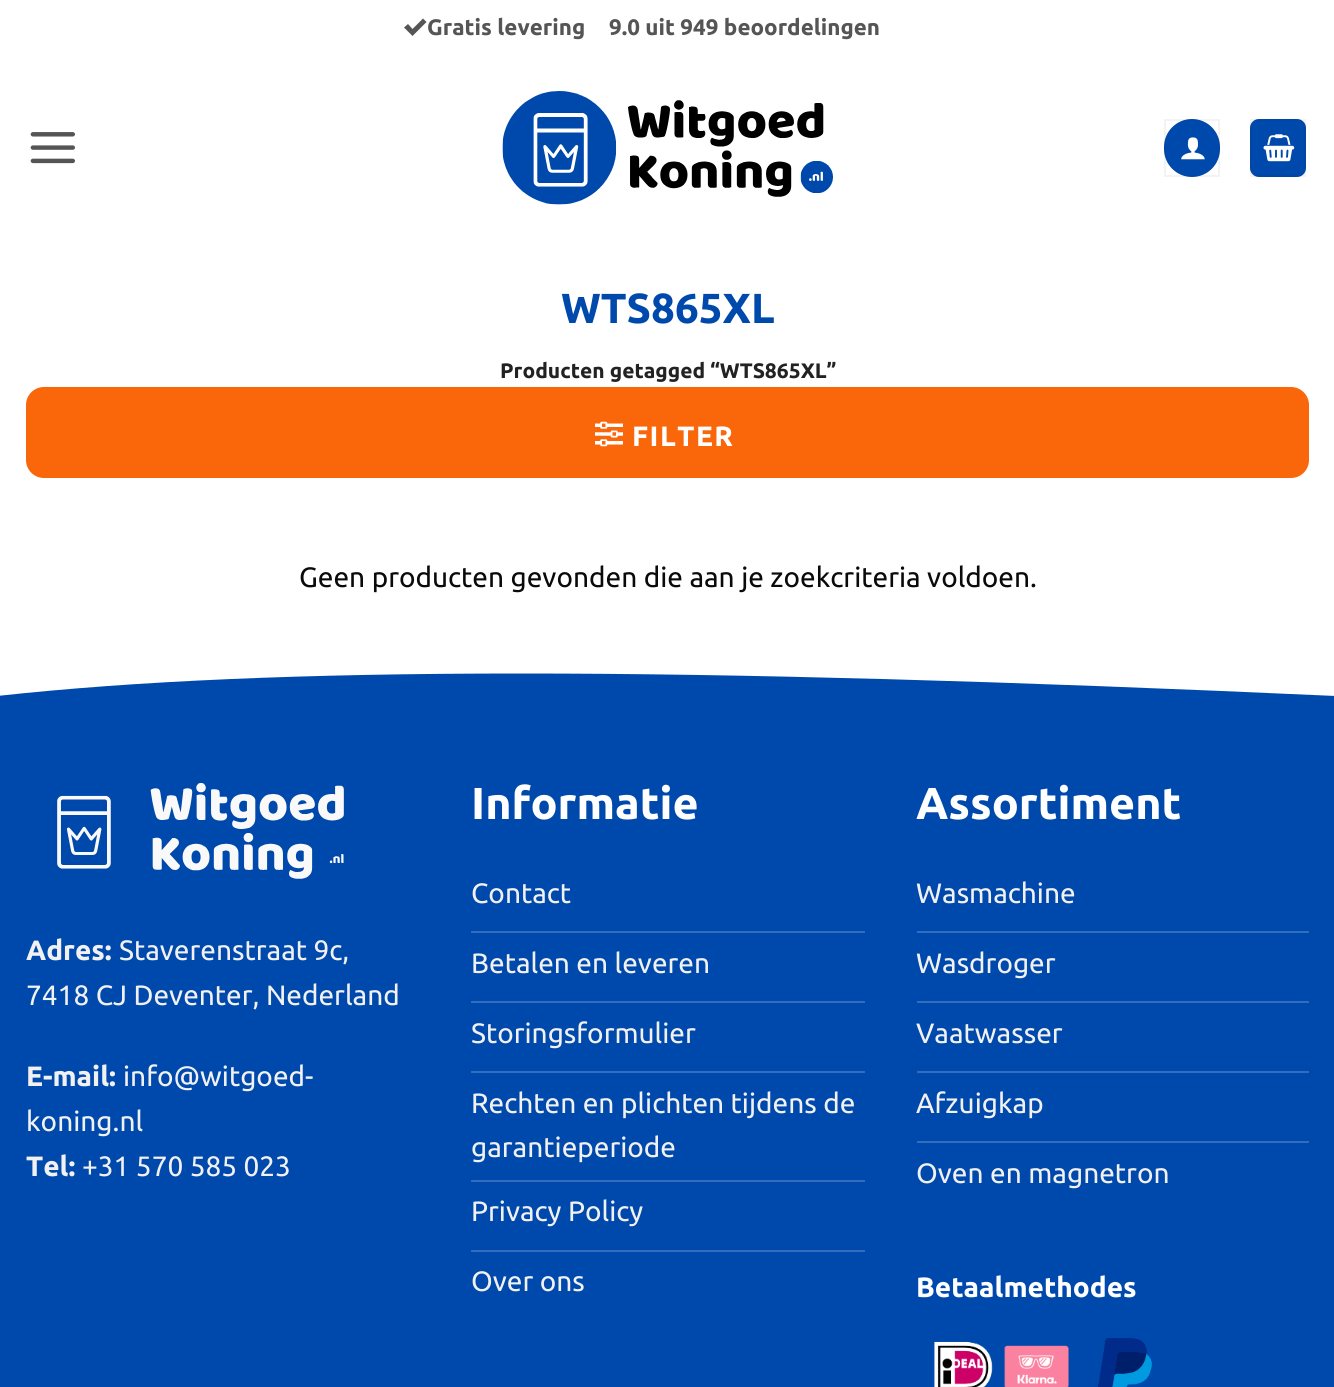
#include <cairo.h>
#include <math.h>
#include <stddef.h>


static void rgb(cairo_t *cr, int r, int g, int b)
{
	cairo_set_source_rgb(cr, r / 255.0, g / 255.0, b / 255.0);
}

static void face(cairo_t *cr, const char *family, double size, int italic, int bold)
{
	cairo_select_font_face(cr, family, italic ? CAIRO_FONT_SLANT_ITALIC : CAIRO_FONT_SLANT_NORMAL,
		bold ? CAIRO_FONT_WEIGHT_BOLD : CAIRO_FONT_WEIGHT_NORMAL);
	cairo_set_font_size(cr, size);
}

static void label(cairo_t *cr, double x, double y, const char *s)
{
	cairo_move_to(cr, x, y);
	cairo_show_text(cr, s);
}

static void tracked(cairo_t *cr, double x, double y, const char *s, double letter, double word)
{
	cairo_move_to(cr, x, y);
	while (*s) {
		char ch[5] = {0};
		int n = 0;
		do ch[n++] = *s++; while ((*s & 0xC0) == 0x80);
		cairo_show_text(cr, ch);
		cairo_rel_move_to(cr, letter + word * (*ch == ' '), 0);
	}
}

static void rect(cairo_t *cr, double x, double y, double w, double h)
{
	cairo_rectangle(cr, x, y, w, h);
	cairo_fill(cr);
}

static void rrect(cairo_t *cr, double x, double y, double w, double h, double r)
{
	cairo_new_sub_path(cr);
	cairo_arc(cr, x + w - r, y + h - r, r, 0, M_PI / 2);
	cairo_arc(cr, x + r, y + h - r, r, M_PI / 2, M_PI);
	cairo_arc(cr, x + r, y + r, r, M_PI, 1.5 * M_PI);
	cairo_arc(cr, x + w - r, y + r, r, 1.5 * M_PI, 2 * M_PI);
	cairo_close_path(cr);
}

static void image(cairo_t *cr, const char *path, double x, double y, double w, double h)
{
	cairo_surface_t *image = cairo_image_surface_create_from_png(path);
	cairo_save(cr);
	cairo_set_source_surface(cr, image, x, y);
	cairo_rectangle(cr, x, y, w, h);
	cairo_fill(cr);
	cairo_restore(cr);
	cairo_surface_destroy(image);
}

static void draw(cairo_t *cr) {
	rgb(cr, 255, 255, 255);
	cairo_paint(cr);
	rgb(cr, 85, 85, 85);
	cairo_new_path(cr);
	cairo_move_to(cr, 423, 18.5);
	cairo_line_to(cr, 412.5, 29);
	cairo_line_to(cr, 408, 24);
	cairo_line_to(cr, 404, 27.5);
	cairo_line_to(cr, 412.5, 36);
	cairo_line_to(cr, 426.5, 22);
	cairo_close_path(cr);
	cairo_fill(cr);
	face(cr, "Ubuntu", 22.4, 0, 1);
	label(cr, 427, 35, "Gratis levering");
	label(cr, 609, 35, "9.0 uit 949 beoordelingen");
	image(cr, "image0.png", 30, 132, 45, 32);
	image(cr, "image1.png", 502, 91, 331, 114);
	rgb(cr, 0, 73, 172);
	rrect(cr, 1164, 119, 56, 58, 28);
	cairo_fill(cr);
	cairo_rectangle(cr, 1165, 120, 54, 56);
	cairo_set_source_rgba(cr, 0, 0, 0, 0.05);
	cairo_stroke(cr);
	image(cr, "image2.png", 1181, 137, 24, 23);
	rgb(cr, 0, 73, 172);
	rrect(cr, 1250, 119, 56, 58, 9);
	cairo_fill(cr);
	cairo_rectangle(cr, 1251, 120, 54, 56);
	cairo_set_source_rgba(cr, 0, 0, 0, 0.05);
	cairo_stroke(cr);
	image(cr, "image3.png", 1263, 134, 32, 28);
	face(cr, "Ubuntu", 42, 0, 1);
	rgb(cr, 0, 73, 172);
	label(cr, 561, 323, "WTS865XL");
	face(cr, "Ubuntu", 21, 0, 1);
	rgb(cr, 34, 34, 34);
	label(cr, 500, 378, "Producten getagged “WTS865XL”");
	rgb(cr, 250, 102, 10);
	rrect(cr, 26, 387, 1283, 91, 18);
	cairo_fill(cr);
	image(cr, "image4.png", 595, 421, 28, 26);
	face(cr, "Ubuntu", 28, 0, 1);
	rgb(cr, 255, 255, 255);
	tracked(cr, 632, 446, "FILTER", 1.5, 0);
	face(cr, "Ubuntu", 28, 0, 0);
	rgb(cr, 10, 10, 10);
	label(cr, 299, 587, "Geen producten gevonden die aan je zoekcriteria voldoen.");
	rgb(cr, 0, 73, 172);
	rect(cr, 0, 673, 1334, 714);
	rgb(cr, 255, 255, 255);
	cairo_new_path(cr);
	cairo_move_to(cr, -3, 666);
	cairo_line_to(cr, 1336, 666);
	cairo_line_to(cr, 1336, 696);
	cairo_curve_to(cr, 675, 666, 270, 666, -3, 696);
	cairo_close_path(cr);
	cairo_fill(cr);
	image(cr, "image5.png", 57, 783, 287, 96);
	face(cr, "Ubuntu", 28, 0, 1);
	rgb(cr, 241, 241, 241);
	label(cr, 26, 960, "Adres:");
	face(cr, "Ubuntu", 28, 0, 0);
	label(cr, 119, 960, "Staverenstraat 9c,");
	label(cr, 26, 1005, "7418 CJ Deventer, Nederland");
	face(cr, "Ubuntu", 28, 0, 1);
	label(cr, 26, 1086, "E-mail:");
	face(cr, "Ubuntu", 28, 0, 0);
	label(cr, 123, 1086, "info@witgoed-");
	label(cr, 26, 1131, "koning.nl");
	face(cr, "Ubuntu", 28, 0, 1);
	label(cr, 26, 1176, "Tel:");
	face(cr, "Ubuntu", 28, 0, 0);
	label(cr, 82, 1176, "+31 570 585 023");
	face(cr, "Ubuntu", 44.75, 0, 1);
	rgb(cr, 255, 255, 255);
	label(cr, 471, 819, "Informatie");
	rgb(cr, 51, 109, 189);
	rect(cr, 471, 931, 394, 2);
	face(cr, "Ubuntu", 28, 0, 0);
	rgb(cr, 241, 241, 241);
	label(cr, 471, 903, "Contact");
	rgb(cr, 51, 109, 189);
	rect(cr, 471, 1001, 394, 2);
	rgb(cr, 241, 241, 241);
	label(cr, 471, 973, "Betalen en leveren");
	rgb(cr, 51, 109, 189);
	rect(cr, 471, 1071, 394, 2);
	rgb(cr, 241, 241, 241);
	label(cr, 471, 1043, "Storingsformulier");
	rgb(cr, 51, 109, 189);
	rect(cr, 471, 1180, 394, 2);
	rgb(cr, 241, 241, 241);
	label(cr, 471, 1113, "Rechten en plichten tijdens de");
	label(cr, 471, 1157, "garantieperiode");
	rgb(cr, 51, 109, 189);
	rect(cr, 471, 1250, 394, 2);
	rgb(cr, 241, 241, 241);
	label(cr, 471, 1221, "Privacy Policy");
	label(cr, 471, 1291, "Over ons");
	face(cr, "Ubuntu", 44.75, 0, 1);
	rgb(cr, 255, 255, 255);
	label(cr, 916, 819, "Assortiment");
	rgb(cr, 51, 109, 189);
	rect(cr, 917, 931, 392, 2);
	face(cr, "Ubuntu", 28, 0, 0);
	rgb(cr, 241, 241, 241);
	label(cr, 916, 903, "Wasmachine");
	rgb(cr, 51, 109, 189);
	rect(cr, 917, 1001, 392, 2);
	rgb(cr, 241, 241, 241);
	label(cr, 916, 973, "Wasdroger");
	rgb(cr, 51, 109, 189);
	rect(cr, 917, 1071, 392, 2);
	rgb(cr, 241, 241, 241);
	label(cr, 916, 1043, "Vaatwasser");
	rgb(cr, 51, 109, 189);
	rect(cr, 917, 1141, 392, 2);
	rgb(cr, 241, 241, 241);
	label(cr, 916, 1113, "Afzuigkap");
	label(cr, 916, 1183, "Oven en magnetron");
	face(cr, "Ubuntu", 28, 0, 1);
	rgb(cr, 255, 255, 255);
	label(cr, 916, 1297, "Betaalmethodes");
	image(cr, "image6.png", 934, 1341, 135, 46);
	image(cr, "image7.png", 1098, 1338, 54, 49);
}

int main(void) {
	cairo_surface_t *surface = cairo_image_surface_create(CAIRO_FORMAT_RGB24, 1334, 1387);
	cairo_t *cr = cairo_create(surface);
	cairo_font_options_t *options = cairo_font_options_create();
	cairo_font_options_set_hint_metrics(options, CAIRO_HINT_METRICS_OFF);
	cairo_font_options_set_hint_style(options, CAIRO_HINT_STYLE_NONE);
	cairo_set_font_options(cr, options);
	cairo_set_miter_limit(cr, 4);
	draw(cr);
	cairo_surface_write_to_png(surface, "render.png");
	cairo_font_options_destroy(options);
	cairo_destroy(cr);
	cairo_surface_destroy(surface);
	return 0;
}
